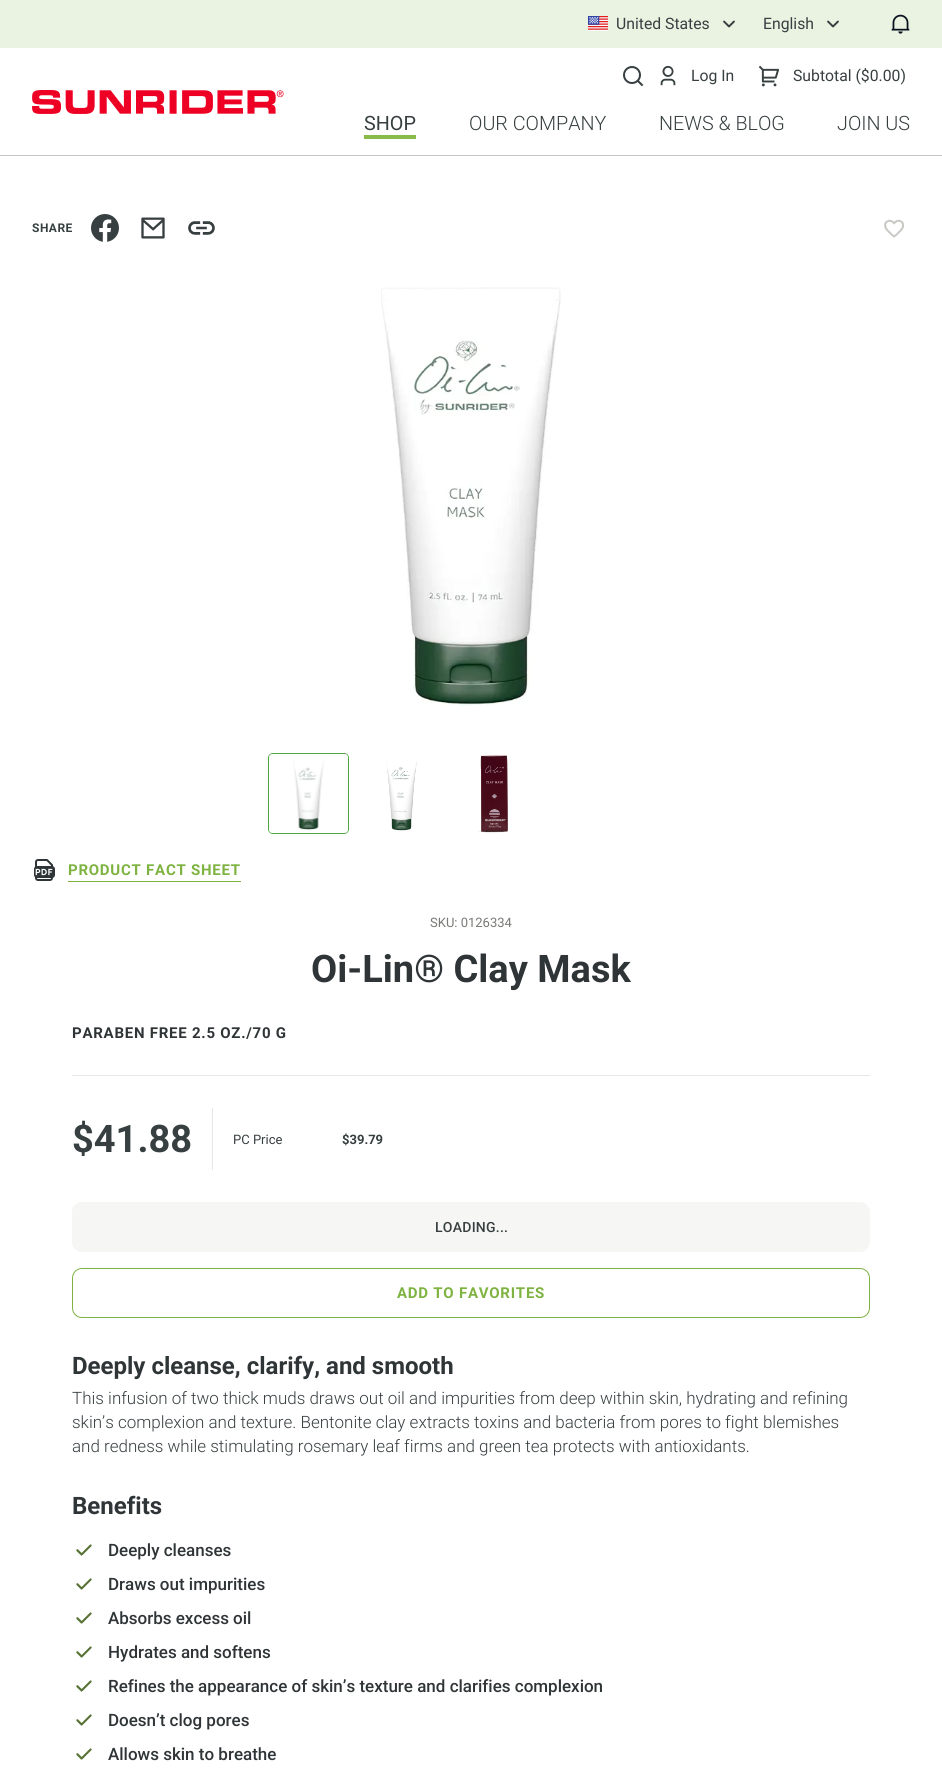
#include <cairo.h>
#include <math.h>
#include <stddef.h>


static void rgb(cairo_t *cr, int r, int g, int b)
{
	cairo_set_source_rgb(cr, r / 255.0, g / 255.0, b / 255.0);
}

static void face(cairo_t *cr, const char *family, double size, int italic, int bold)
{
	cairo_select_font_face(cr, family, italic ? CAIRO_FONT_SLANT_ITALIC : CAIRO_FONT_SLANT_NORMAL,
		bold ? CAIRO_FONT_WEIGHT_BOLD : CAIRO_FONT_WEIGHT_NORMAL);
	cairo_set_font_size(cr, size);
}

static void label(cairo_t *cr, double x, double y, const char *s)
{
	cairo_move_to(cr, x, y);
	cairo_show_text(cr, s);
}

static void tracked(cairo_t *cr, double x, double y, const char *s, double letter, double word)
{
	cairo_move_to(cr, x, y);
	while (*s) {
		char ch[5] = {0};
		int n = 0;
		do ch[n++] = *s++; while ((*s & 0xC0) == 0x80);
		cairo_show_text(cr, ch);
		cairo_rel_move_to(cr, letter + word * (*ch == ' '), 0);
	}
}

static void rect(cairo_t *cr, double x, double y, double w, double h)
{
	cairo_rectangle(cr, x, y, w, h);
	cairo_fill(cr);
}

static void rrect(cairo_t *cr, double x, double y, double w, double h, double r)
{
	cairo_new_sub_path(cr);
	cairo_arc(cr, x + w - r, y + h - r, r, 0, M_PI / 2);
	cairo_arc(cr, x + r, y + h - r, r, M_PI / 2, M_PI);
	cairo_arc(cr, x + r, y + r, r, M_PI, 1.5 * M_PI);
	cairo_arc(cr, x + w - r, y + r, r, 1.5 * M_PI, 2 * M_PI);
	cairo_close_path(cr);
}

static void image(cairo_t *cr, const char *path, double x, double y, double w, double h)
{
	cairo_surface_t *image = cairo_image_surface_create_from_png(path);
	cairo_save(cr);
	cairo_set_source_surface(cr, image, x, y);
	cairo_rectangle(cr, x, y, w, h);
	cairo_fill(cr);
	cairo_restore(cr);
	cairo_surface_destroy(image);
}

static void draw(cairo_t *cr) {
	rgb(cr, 255, 255, 255);
	cairo_paint(cr);
	rgb(cr, 234, 242, 225);
	rect(cr, 0, 0, 942, 48);
	image(cr, "image0.png", 588, 16, 20, 15);
	face(cr, "Roboto", 15.75, 0, 0);
	rgb(cr, 55, 63, 65);
	label(cr, 616, 29, "United States");
	image(cr, "image1.png", 723, 20, 12, 8);
	label(cr, 763, 29, "English");
	image(cr, "image1.png", 827, 20, 12, 8);
	image(cr, "image2.png", 891, 14, 19, 20);
	rgb(cr, 196, 196, 196);
	rect(cr, 0, 155, 942, 1);
	image(cr, "image3.png", 623, 66, 21, 21);
	image(cr, "image4.png", 660, 65, 16, 21);
	rgb(cr, 55, 63, 65);
	label(cr, 691, 81, "Log In");
	image(cr, "image5.png", 758, 65, 21, 22);
	label(cr, 793, 81, "Subtotal ($0.00)");
	image(cr, "image6.png", 32, 90, 252, 24);
	face(cr, "Roboto", 19.75, 0, 0);
	label(cr, 364, 130, "SHOP");
	rgb(cr, 135, 188, 73);
	rect(cr, 364, 135, 52, 4);
	face(cr, "Roboto Light", 19.75, 0, 0);
	rgb(cr, 55, 63, 65);
	label(cr, 469, 130, "OUR COMPANY");
	label(cr, 659, 130, "NEWS & BLOG");
	label(cr, 837, 130, "JOIN US");
	face(cr, "Roboto", 12, 0, 1);
	tracked(cr, 32, 232, "SHARE", 0.5, 0);
	image(cr, "image7.png", 91, 214, 28, 28);
	image(cr, "image8.png", 141, 217, 24, 22);
	image(cr, "image9.png", 188, 221, 27, 14);
	image(cr, "image10.png", 884, 219, 21, 19);
	image(cr, "image11.png", 381, 287, 180, 420);
	rrect(cr, 268.5, 753.5, 80, 80, 4.5);
	rgb(cr, 79, 167, 65);
	cairo_set_line_width(cr, 1);
	cairo_stroke(cr);
	image(cr, "image12.png", 269, 754, 79, 79);
	image(cr, "image13.png", 386, 761, 31, 70);
	image(cr, "image14.png", 478, 755, 30, 78);
	image(cr, "image15.png", 34, 859, 21, 22);
	face(cr, "Roboto", 15, 0, 1);
	rgb(cr, 126, 179, 66);
	tracked(cr, 68, 875, "PRODUCT FACT SHEET", 0.75, 0);
	rect(cr, 68, 881, 173, 1);
	face(cr, "Roboto", 13, 0, 0);
	rgb(cr, 121, 122, 117);
	label(cr, 430, 927, "SKU: 0126334");
	face(cr, "Roboto", 38, 0, 1);
	rgb(cr, 47, 53, 55);
	label(cr, 311, 982, "Oi-Lin® Clay Mask");
	face(cr, "Roboto", 15, 0, 1);
	tracked(cr, 72, 1038, "PARABEN FREE 2.5 OZ./70 G", 0.75, 0);
	rgb(cr, 231, 232, 229);
	rect(cr, 72, 1075, 798, 1);
	face(cr, "Roboto", 38, 0, 1);
	rgb(cr, 55, 63, 65);
	label(cr, 72, 1152, "$41.88");
	rgb(cr, 231, 232, 229);
	rect(cr, 212, 1108, 1, 62);
	face(cr, "Roboto", 13, 0, 0);
	rgb(cr, 55, 63, 65);
	label(cr, 233, 1144, "PC Price");
	face(cr, "Roboto", 13, 0, 1);
	label(cr, 342, 1144, "$39.79");
	rgb(cr, 246, 247, 244);
	rrect(cr, 72, 1202, 798, 50, 10);
	cairo_fill(cr);
	face(cr, "Roboto Medium", 14, 0, 0);
	rgb(cr, 55, 63, 65);
	tracked(cr, 435, 1232, "LOADING...", 0.25, 0);
	rrect(cr, 72.5, 1268.5, 797, 49, 9.5);
	rgb(cr, 126, 179, 66);
	cairo_stroke(cr);
	face(cr, "Roboto", 15, 0, 1);
	tracked(cr, 397, 1298, "ADD TO FAVORITES", 0.75, 0);
	face(cr, "Roboto", 24, 0, 1);
	rgb(cr, 47, 53, 55);
	label(cr, 72, 1374, "Deeply cleanse, clarify, and smooth");
	face(cr, "Roboto Light", 17, 0, 0);
	rgb(cr, 55, 63, 65);
	label(cr, 72, 1404, "This infusion of two thick muds draws out oil and impurities from deep within skin, hydrating and refining");
	label(cr, 72, 1428, "skin’s complexion and texture. Bentonite clay extracts toxins and bacteria from pores to fight blemishes");
	label(cr, 72, 1452, "and redness while stimulating rosemary leaf firms and green tea protects with antioxidants.");
	face(cr, "Roboto", 24, 0, 1);
	rgb(cr, 47, 53, 55);
	label(cr, 72, 1514, "Benefits");
	image(cr, "image16.png", 76, 1544, 16, 12);
	face(cr, "Roboto Medium", 17, 0, 0);
	label(cr, 108, 1556, "Deeply cleanses");
	image(cr, "image16.png", 76, 1578, 16, 12);
	label(cr, 108, 1590, "Draws out impurities");
	image(cr, "image16.png", 76, 1612, 16, 12);
	label(cr, 108, 1624, "Absorbs excess oil");
	image(cr, "image16.png", 76, 1646, 16, 12);
	label(cr, 108, 1658, "Hydrates and softens");
	image(cr, "image16.png", 76, 1680, 16, 12);
	label(cr, 108, 1692, "Refines the appearance of skin’s texture and clarifies complexion");
	image(cr, "image16.png", 76, 1714, 16, 12);
	label(cr, 108, 1726, "Doesn’t clog pores");
	image(cr, "image16.png", 76, 1748, 16, 12);
	label(cr, 108, 1760, "Allows skin to breathe");
}

int main(void) {
	cairo_surface_t *surface = cairo_image_surface_create(CAIRO_FORMAT_RGB24, 942, 1768);
	cairo_t *cr = cairo_create(surface);
	cairo_font_options_t *options = cairo_font_options_create();
	cairo_font_options_set_hint_metrics(options, CAIRO_HINT_METRICS_OFF);
	cairo_font_options_set_hint_style(options, CAIRO_HINT_STYLE_NONE);
	cairo_set_font_options(cr, options);
	cairo_set_miter_limit(cr, 4);
	draw(cr);
	cairo_surface_write_to_png(surface, "render.png");
	cairo_font_options_destroy(options);
	cairo_destroy(cr);
	cairo_surface_destroy(surface);
	return 0;
}
